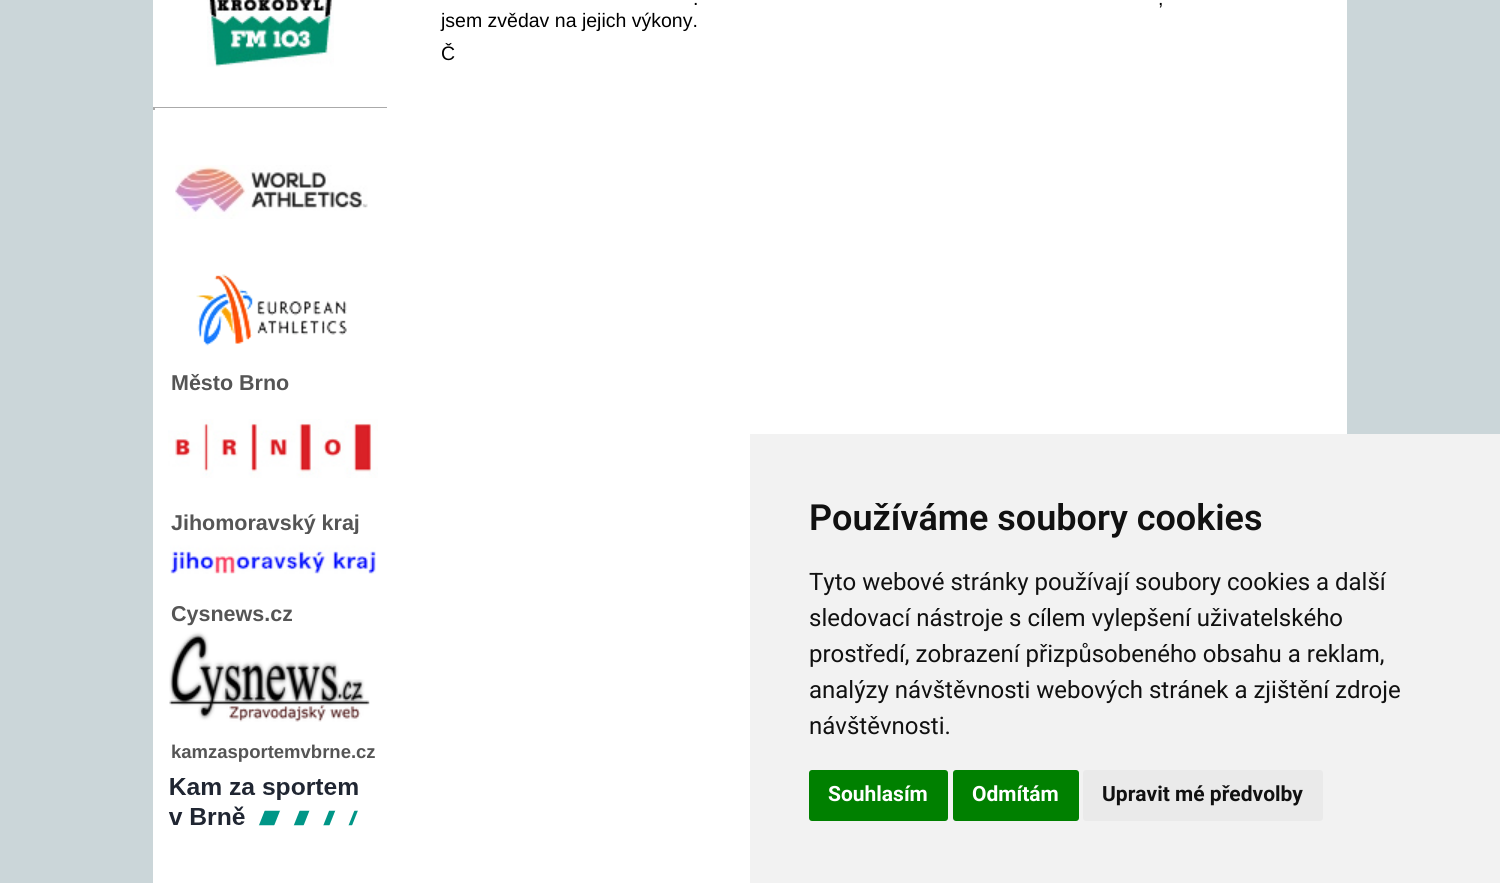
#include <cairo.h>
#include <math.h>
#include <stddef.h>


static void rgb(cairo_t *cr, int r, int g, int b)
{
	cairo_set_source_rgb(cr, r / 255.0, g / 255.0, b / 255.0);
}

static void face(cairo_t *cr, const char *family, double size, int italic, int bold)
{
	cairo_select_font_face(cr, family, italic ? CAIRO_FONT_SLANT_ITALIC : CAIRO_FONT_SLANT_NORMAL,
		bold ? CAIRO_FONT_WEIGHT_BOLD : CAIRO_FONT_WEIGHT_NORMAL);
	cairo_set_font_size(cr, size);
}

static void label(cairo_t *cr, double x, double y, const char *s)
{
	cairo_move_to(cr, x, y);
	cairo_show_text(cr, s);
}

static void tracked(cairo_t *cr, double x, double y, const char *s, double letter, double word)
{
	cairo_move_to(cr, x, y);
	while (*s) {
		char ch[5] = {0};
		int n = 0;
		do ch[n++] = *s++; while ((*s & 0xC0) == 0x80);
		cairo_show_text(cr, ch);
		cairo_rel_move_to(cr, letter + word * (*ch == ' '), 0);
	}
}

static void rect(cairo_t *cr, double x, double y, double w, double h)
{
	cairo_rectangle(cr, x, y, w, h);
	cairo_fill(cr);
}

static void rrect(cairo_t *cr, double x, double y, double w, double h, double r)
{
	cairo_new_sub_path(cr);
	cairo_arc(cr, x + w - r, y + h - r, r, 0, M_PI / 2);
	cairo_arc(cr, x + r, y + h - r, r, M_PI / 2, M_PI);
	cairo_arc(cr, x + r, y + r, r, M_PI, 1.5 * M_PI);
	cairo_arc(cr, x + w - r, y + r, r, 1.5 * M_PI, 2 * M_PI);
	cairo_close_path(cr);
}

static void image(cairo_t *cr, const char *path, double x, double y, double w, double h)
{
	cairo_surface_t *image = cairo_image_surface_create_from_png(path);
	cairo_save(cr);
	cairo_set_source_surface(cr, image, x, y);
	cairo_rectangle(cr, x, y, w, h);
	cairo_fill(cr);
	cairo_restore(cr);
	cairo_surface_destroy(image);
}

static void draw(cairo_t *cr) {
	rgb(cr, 203, 214, 217);
	cairo_paint(cr);
	rgb(cr, 255, 255, 255);
	rect(cr, 153, 0, 1194, 883);
	face(cr, "Liberation Sans", 19.5, 0, 0);
	rgb(cr, 0, 0, 0);
	tracked(cr, 693, 5, ".", 0, 2);
	tracked(cr, 1158, 5, ",", 0, 2);
	label(cr, 441, 27, "jsem zvědav na jejich výkony.");
	label(cr, 441, 60, "Č");
	image(cr, "image0.png", 207, 0, 127, 67);
	rgb(cr, 170, 170, 170);
	rect(cr, 153, 107, 236, 1);
	rgb(cr, 255, 255, 255);
	rect(cr, 387, 107, 2, 3);
	rgb(cr, 170, 170, 170);
	rect(cr, 153, 107, 2, 3);
	image(cr, "image1.png", 175, 165, 193, 54);
	image(cr, "image2.png", 196, 274, 151, 72);
	face(cr, "Liberation Sans", 21.5, 0, 1);
	rgb(cr, 85, 85, 85);
	label(cr, 171, 390, "Město Brno");
	image(cr, "image3.png", 168, 419, 210, 59);
	label(cr, 171, 530, "Jihomoravský kraj");
	image(cr, "image4.png", 170, 534, 206, 40);
	label(cr, 171, 621, "Cysnews.cz");
	image(cr, "image5.png", 169, 625, 201, 97);
	face(cr, "Liberation Sans", 18.5, 0, 1);
	label(cr, 171, 758, "kamzasportemvbrne.cz");
	image(cr, "image6.png", 168, 778, 190, 48);
	rgb(cr, 242, 242, 242);
	rect(cr, 750, 434, 750, 449);
	face(cr, "Roboto SemiBold", 36, 0, 0);
	rgb(cr, 17, 17, 17);
	label(cr, 809, 530, "Používáme soubory cookies");
	face(cr, "Roboto", 24, 0, 0);
	label(cr, 809, 590, "Tyto webové stránky používají soubory cookies a další");
	label(cr, 809, 626, "sledovací nástroje s cílem vylepšení uživatelského");
	label(cr, 809, 662, "prostředí, zobrazení přizpůsobeného obsahu a reklam,");
	label(cr, 809, 698, "analýzy návštěvnosti webových stránek a zjištění zdroje");
	label(cr, 809, 734, "návštěvnosti.");
	rgb(cr, 0, 128, 0);
	rrect(cr, 809, 770, 139, 51, 3);
	cairo_fill(cr);
	face(cr, "Roboto", 21, 0, 1);
	rgb(cr, 255, 255, 255);
	label(cr, 828, 801, "Souhlasím");
	rgb(cr, 0, 128, 0);
	rrect(cr, 953, 770, 126, 51, 3);
	cairo_fill(cr);
	rgb(cr, 255, 255, 255);
	label(cr, 972, 801, "Odmítám");
	rgb(cr, 234, 234, 234);
	rrect(cr, 1083, 770, 240, 51, 3);
	cairo_fill(cr);
	rgb(cr, 17, 17, 17);
	label(cr, 1102, 801, "Upravit mé předvolby");
}

int main(void) {
	cairo_surface_t *surface = cairo_image_surface_create(CAIRO_FORMAT_RGB24, 1500, 883);
	cairo_t *cr = cairo_create(surface);
	cairo_font_options_t *options = cairo_font_options_create();
	cairo_font_options_set_hint_metrics(options, CAIRO_HINT_METRICS_OFF);
	cairo_font_options_set_hint_style(options, CAIRO_HINT_STYLE_NONE);
	cairo_set_font_options(cr, options);
	cairo_set_miter_limit(cr, 4);
	draw(cr);
	cairo_surface_write_to_png(surface, "render.png");
	cairo_font_options_destroy(options);
	cairo_destroy(cr);
	cairo_surface_destroy(surface);
	return 0;
}
